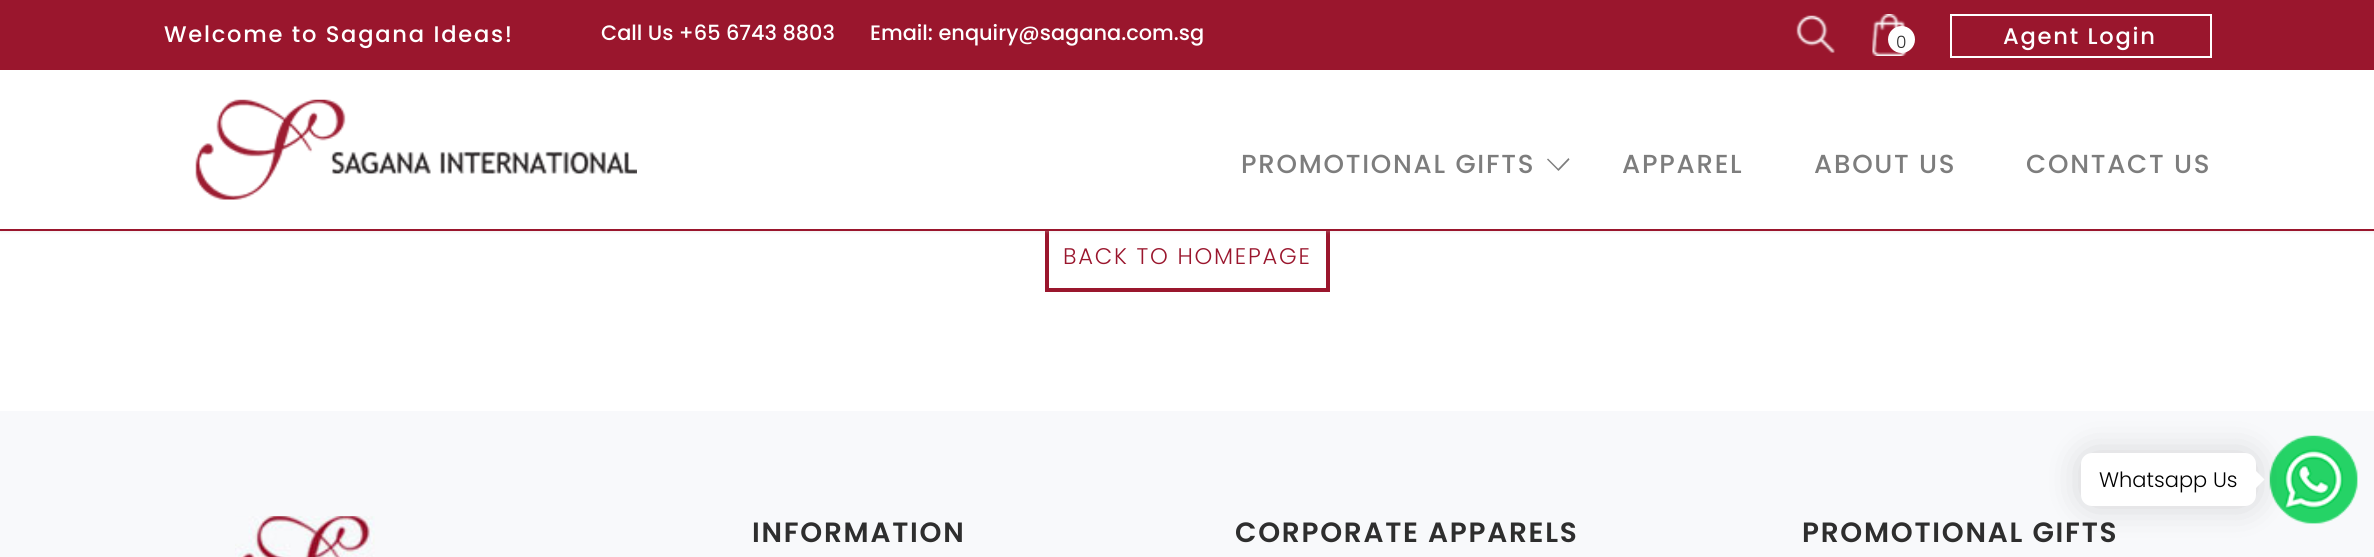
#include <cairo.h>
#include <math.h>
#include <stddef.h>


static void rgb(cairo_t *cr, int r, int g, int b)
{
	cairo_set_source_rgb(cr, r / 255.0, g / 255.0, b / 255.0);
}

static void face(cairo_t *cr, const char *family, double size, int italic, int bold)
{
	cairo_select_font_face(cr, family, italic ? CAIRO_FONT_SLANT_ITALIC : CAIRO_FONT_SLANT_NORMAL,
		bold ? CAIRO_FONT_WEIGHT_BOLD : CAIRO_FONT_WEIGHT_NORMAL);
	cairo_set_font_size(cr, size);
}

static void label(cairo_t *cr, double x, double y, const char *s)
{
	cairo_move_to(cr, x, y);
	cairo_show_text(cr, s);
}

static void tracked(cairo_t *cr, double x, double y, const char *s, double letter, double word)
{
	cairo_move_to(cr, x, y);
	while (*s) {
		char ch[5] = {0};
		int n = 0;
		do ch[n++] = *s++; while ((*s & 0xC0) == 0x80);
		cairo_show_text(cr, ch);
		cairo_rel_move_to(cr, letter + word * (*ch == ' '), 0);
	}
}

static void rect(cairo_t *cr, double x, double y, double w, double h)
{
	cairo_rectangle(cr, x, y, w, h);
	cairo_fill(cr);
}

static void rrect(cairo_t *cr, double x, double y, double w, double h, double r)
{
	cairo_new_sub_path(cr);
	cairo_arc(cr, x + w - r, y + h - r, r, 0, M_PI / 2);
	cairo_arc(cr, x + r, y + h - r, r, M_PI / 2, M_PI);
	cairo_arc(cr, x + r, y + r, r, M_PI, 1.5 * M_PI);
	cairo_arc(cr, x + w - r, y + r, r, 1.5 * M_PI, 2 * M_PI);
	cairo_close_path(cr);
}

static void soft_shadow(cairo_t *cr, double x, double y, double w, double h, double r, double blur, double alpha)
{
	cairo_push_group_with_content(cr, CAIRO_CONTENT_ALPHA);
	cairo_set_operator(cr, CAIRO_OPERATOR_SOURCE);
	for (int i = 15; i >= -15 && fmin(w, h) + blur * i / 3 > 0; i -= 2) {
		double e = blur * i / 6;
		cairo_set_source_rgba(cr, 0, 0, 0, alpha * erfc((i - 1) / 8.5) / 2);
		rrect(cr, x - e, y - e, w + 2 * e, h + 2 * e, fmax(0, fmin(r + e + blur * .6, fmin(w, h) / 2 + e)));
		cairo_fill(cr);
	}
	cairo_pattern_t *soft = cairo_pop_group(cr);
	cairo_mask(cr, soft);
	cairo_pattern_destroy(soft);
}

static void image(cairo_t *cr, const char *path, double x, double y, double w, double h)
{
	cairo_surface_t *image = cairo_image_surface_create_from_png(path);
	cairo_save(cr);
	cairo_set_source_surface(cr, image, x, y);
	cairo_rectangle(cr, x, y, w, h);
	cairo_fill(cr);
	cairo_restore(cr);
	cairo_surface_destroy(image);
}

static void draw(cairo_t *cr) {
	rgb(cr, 255, 255, 255);
	cairo_paint(cr);
	cairo_rectangle(cr, 1047, 224, 281, 66);
	rgb(cr, 154, 22, 45);
	cairo_set_line_width(cr, 4);
	cairo_stroke(cr);
	rgb(cr, 204, 204, 204);
	soft_shadow(cr, 0, 0, 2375, 231, 0, 2, 0.5);
	rgb(cr, 255, 255, 255);
	rect(cr, 0, 70, 2374, 159);
	rgb(cr, 154, 22, 45);
	rect(cr, 0, 229, 2374, 2);
	rect(cr, 0, 0, 2374, 70);
	face(cr, "Poppins Medium", 22.6, 0, 0);
	rgb(cr, 255, 255, 255);
	tracked(cr, 164, 42, "Welcome to Sagana Ideas!", 1.75, 0);
	face(cr, "Poppins Medium", 20.9, 0, 0);
	label(cr, 601, 40, "Call Us +65 6743 8803");
	label(cr, 870, 40, "Email: enquiry@sagana.com.sg");
	image(cr, "image0.png", 1796, 15, 39, 38);
	image(cr, "image1.png", 1872, 14, 35, 42);
	cairo_arc(cr, 1901.5, 39.5, 13.5, 0, 2 * M_PI);
	cairo_fill(cr);
	face(cr, "Poppins Light", 17, 0, 0);
	rgb(cr, 46, 46, 46);
	label(cr, 1896, 48, "0");
	cairo_rectangle(cr, 1951, 15, 260, 42);
	rgb(cr, 255, 255, 255);
	cairo_set_line_width(cr, 2);
	cairo_stroke(cr);
	face(cr, "Poppins Medium", 22.6, 0, 0);
	tracked(cr, 2003, 44, "Agent Login", 1.75, 0);
	image(cr, "image2.png", 195, 99, 442, 101);
	face(cr, "Poppins Medium", 26.1, 0, 0);
	rgb(cr, 125, 125, 125);
	tracked(cr, 1241, 173, "PROMOTIONAL GIFTS", 1.75, 0);
	cairo_new_path(cr);
	cairo_move_to(cr, 1558, 170.5);
	cairo_line_to(cr, 1547, 159.5);
	cairo_line_to(cr, 1548, 158.5);
	cairo_line_to(cr, 1559, 169.5);
	cairo_close_path(cr);
	cairo_fill(cr);
	cairo_new_path(cr);
	cairo_move_to(cr, 1557.5, 169.5);
	cairo_line_to(cr, 1568.5, 158);
	cairo_line_to(cr, 1569.5, 159.5);
	cairo_line_to(cr, 1558.5, 171);
	cairo_close_path(cr);
	cairo_fill(cr);
	tracked(cr, 1622, 173, "APPAREL", 1.75, 0);
	tracked(cr, 1814, 173, "ABOUT US", 1.75, 0);
	tracked(cr, 2026, 173, "CONTACT US", 1.75, 0);
	face(cr, "Poppins Light", 22.6, 0, 0);
	rgb(cr, 154, 22, 45);
	tracked(cr, 1063, 264, "BACK TO HOMEPAGE", 1.75, 0);
	rgb(cr, 248, 249, 251);
	rect(cr, 0, 411, 2374, 146);
	image(cr, "image3.png", 235, 516, 140, 41);
	face(cr, "Poppins SemiBold", 27.9, 0, 0);
	rgb(cr, 46, 46, 46);
	tracked(cr, 752, 542, "INFORMATION", 1.75, 0);
	tracked(cr, 1235, 542, "CORPORATE APPARELS", 1.75, 0);
	tracked(cr, 1802, 542, "PROMOTIONAL GIFTS", 1.75, 0);
	image(cr, "image4.png", 2269, 435, 89, 89);
	rgb(cr, 0, 0, 0);
	soft_shadow(cr, 2081, 453, 175, 53, 11, 17.5, 0.15);
	rgb(cr, 255, 255, 255);
	rrect(cr, 2081, 453, 175, 53, 11);
	cairo_fill(cr);
	face(cr, "Poppins Light", 21, 0, 0);
	rgb(cr, 0, 0, 0);
	label(cr, 2099, 487, "Whatsapp Us");
	rgb(cr, 255, 255, 255);
	cairo_new_path(cr);
	cairo_move_to(cr, 2256, 488);
	cairo_line_to(cr, 2256, 471);
	cairo_line_to(cr, 2264.5, 479.5);
	cairo_close_path(cr);
	cairo_fill(cr);
}

int main(void) {
	cairo_surface_t *surface = cairo_image_surface_create(CAIRO_FORMAT_RGB24, 2374, 557);
	cairo_t *cr = cairo_create(surface);
	cairo_font_options_t *options = cairo_font_options_create();
	cairo_font_options_set_hint_metrics(options, CAIRO_HINT_METRICS_OFF);
	cairo_font_options_set_hint_style(options, CAIRO_HINT_STYLE_NONE);
	cairo_set_font_options(cr, options);
	cairo_set_miter_limit(cr, 4);
	draw(cr);
	cairo_surface_write_to_png(surface, "render.png");
	cairo_font_options_destroy(options);
	cairo_destroy(cr);
	cairo_surface_destroy(surface);
	return 0;
}
